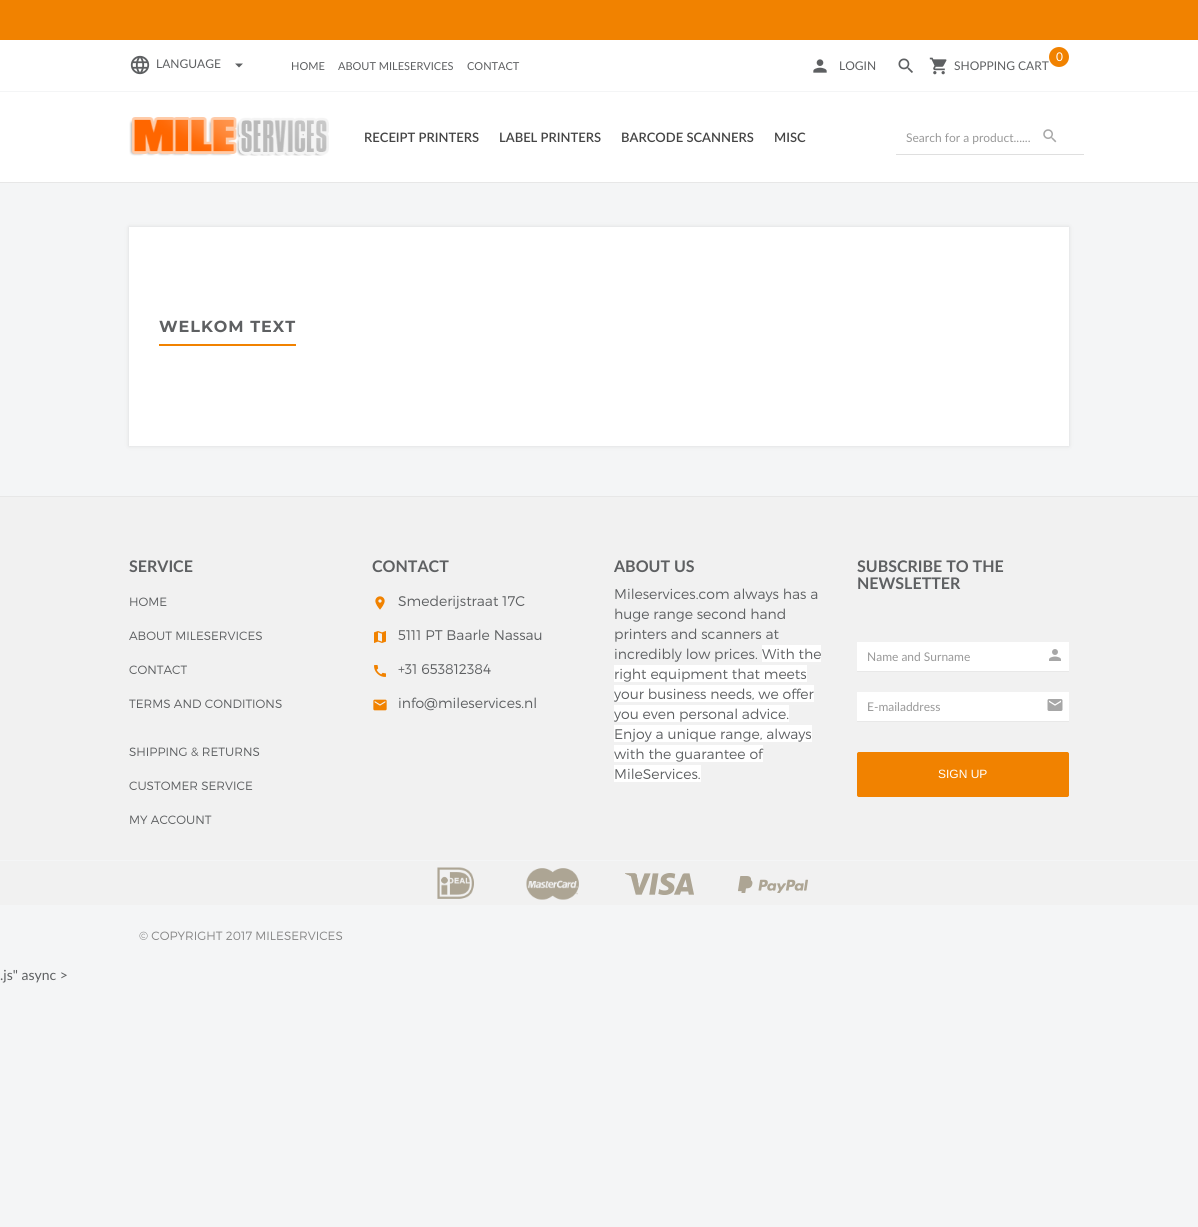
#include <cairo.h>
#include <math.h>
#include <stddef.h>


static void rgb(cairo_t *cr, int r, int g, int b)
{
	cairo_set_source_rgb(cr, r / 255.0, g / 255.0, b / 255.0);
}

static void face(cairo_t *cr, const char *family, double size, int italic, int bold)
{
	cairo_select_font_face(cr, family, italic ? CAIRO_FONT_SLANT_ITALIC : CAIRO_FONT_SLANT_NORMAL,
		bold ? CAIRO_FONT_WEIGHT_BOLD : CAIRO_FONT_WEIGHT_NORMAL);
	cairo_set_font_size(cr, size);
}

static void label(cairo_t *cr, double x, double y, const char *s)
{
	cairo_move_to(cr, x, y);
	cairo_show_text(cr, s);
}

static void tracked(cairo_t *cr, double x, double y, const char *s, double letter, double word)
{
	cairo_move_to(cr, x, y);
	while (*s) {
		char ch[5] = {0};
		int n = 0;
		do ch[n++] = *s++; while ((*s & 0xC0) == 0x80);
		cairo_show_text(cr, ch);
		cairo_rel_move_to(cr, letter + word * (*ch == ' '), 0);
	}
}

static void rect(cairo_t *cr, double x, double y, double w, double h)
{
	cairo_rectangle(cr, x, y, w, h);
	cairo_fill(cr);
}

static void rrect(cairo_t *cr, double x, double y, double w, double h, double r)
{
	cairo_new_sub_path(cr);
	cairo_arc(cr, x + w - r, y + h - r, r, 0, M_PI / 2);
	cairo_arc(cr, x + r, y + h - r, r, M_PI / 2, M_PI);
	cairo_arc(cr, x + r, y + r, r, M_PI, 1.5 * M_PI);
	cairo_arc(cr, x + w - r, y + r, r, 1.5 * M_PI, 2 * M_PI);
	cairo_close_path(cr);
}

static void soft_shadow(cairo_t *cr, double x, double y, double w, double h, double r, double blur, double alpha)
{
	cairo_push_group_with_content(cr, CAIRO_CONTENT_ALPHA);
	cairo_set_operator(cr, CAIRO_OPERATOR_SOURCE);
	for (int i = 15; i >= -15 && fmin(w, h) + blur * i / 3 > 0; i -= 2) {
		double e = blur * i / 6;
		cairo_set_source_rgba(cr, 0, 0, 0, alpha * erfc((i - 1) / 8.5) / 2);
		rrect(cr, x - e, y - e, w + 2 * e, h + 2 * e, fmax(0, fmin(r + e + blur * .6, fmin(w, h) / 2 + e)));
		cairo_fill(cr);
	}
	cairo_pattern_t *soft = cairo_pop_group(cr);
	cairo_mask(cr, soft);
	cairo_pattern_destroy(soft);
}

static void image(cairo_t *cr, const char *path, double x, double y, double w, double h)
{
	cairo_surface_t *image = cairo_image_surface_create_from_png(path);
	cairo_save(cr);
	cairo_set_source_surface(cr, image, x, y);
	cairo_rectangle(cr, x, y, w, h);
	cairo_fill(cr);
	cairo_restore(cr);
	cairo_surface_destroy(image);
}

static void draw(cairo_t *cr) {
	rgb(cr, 244, 245, 246);
	cairo_paint(cr);
	rgb(cr, 255, 255, 255);
	rect(cr, 0, 40, 1198, 142);
	rgb(cr, 231, 231, 231);
	rect(cr, 0, 182, 1198, 1);
	rgb(cr, 241, 130, 0);
	rect(cr, 0, 0, 1198, 40);
	image(cr, "image0.png", 130, 55, 20, 20);
	face(cr, "Lato", 12, 0, 0);
	rgb(cr, 94, 96, 98);
	label(cr, 156, 68, "LANGUAGE");
	cairo_new_path(cr);
	cairo_move_to(cr, 235, 63.5);
	cairo_line_to(cr, 243, 63.5);
	cairo_line_to(cr, 239, 67.5);
	cairo_close_path(cr);
	cairo_fill(cr);
	face(cr, "Lato", 11, 0, 0);
	label(cr, 291, 70, "HOME");
	label(cr, 338, 70, "ABOUT MILESERVICES");
	label(cr, 467, 70, "CONTACT");
	image(cr, "image1.png", 813, 59, 14, 14);
	face(cr, "Lato", 12, 0, 0);
	label(cr, 839, 70, "LOGIN");
	image(cr, "image2.png", 898, 58, 15, 15);
	image(cr, "image3.png", 929, 57, 18, 18);
	label(cr, 954, 70, "SHOPPING CART");
	rgb(cr, 241, 130, 0);
	cairo_new_path(cr);
	cairo_arc(cr, 1059, 57, 10, 0, 2 * M_PI);
	cairo_fill(cr);
	rgb(cr, 255, 255, 255);
	label(cr, 1056, 61, "0");
	rgb(cr, 244, 245, 246);
	rect(cr, 0, 91, 1198, 1);
	image(cr, "image4.png", 129, 117, 200, 39);
	face(cr, "Lato SemiBold", 13, 0, 0);
	rgb(cr, 68, 68, 68);
	label(cr, 364, 142, "RECEIPT PRINTERS");
	label(cr, 499, 142, "LABEL PRINTERS");
	label(cr, 621, 142, "BARCODE SCANNERS");
	label(cr, 774, 142, "MISC");
	rgb(cr, 223, 223, 223);
	rect(cr, 896, 154, 188, 1);
	face(cr, "Lato", 12, 0, 0);
	rgb(cr, 153, 153, 153);
	label(cr, 906, 142, "Search for a product......");
	image(cr, "image5.png", 1043, 129, 14, 14);
	rgb(cr, 189, 189, 189);
	soft_shadow(cr, 129, 227, 940, 219, 0, 2, 0.5);
	rgb(cr, 255, 255, 255);
	rect(cr, 129, 227, 940, 219);
	rgb(cr, 241, 130, 0);
	rect(cr, 159, 344, 137, 2);
	face(cr, "Montserrat", 16, 0, 1);
	rgb(cr, 94, 96, 98);
	tracked(cr, 159, 332, "WELKOM TEXT", 1, 0);
	rgb(cr, 241, 241, 241);
	rect(cr, 0, 497, 1198, 408);
	rgb(cr, 231, 231, 231);
	rect(cr, 0, 496, 1198, 1);
	face(cr, "Lato", 16, 0, 1);
	rgb(cr, 94, 96, 98);
	label(cr, 129, 572, "SERVICE");
	face(cr, "Montserrat Light", 12, 0, 0);
	label(cr, 129, 606, "HOME");
	label(cr, 129, 640, "ABOUT MILESERVICES");
	label(cr, 129, 674, "CONTACT");
	label(cr, 129, 708, "TERMS AND CONDITIONS");
	label(cr, 129, 756, "SHIPPING & RETURNS");
	label(cr, 129, 790, "CUSTOMER SERVICE");
	label(cr, 129, 824, "MY ACCOUNT");
	face(cr, "Lato", 16, 0, 1);
	label(cr, 372, 572, "CONTACT");
	image(cr, "image6.png", 375, 596, 10, 14);
	face(cr, "Montserrat Light", 14, 0, 0);
	label(cr, 398, 606, "Smederijstraat 17C");
	image(cr, "image7.png", 374, 631, 12, 12);
	label(cr, 398, 640, "5111 PT Baarle Nassau");
	image(cr, "image8.png", 374, 665, 12, 12);
	label(cr, 398, 674, "+31 653812384");
	image(cr, "image9.png", 373, 699, 14, 12);
	label(cr, 398, 708, "info@mileservices.nl");
	face(cr, "Lato", 16, 0, 1);
	label(cr, 614, 572, "ABOUT US");
	face(cr, "Montserrat Light", 14, 0, 0);
	label(cr, 614, 599, "Mileservices.com always has a");
	label(cr, 614, 619, "huge range second hand");
	label(cr, 614, 639, "printers and scanners at");
	label(cr, 614, 659, "incredibly low prices.");
	rgb(cr, 255, 255, 255);
	rect(cr, 762, 645, 59, 17);
	rgb(cr, 94, 96, 98);
	label(cr, 762, 659, "With the");
	rgb(cr, 255, 255, 255);
	rect(cr, 614, 665, 193, 17);
	rgb(cr, 94, 96, 98);
	label(cr, 614, 679, "right equipment that meets");
	rgb(cr, 255, 255, 255);
	rect(cr, 614, 685, 200, 17);
	rgb(cr, 94, 96, 98);
	label(cr, 614, 699, "your business needs, we offer");
	rgb(cr, 255, 255, 255);
	rect(cr, 614, 705, 175, 17);
	rgb(cr, 94, 96, 98);
	label(cr, 614, 719, "you even personal advice.");
	rgb(cr, 255, 255, 255);
	rect(cr, 614, 725, 198, 17);
	rgb(cr, 94, 96, 98);
	label(cr, 614, 739, "Enjoy a unique range, always");
	rgb(cr, 255, 255, 255);
	rect(cr, 614, 745, 149, 17);
	rgb(cr, 94, 96, 98);
	label(cr, 614, 759, "with the guarantee of");
	rgb(cr, 255, 255, 255);
	rect(cr, 614, 765, 87, 17);
	rgb(cr, 94, 96, 98);
	label(cr, 614, 779, "MileServices.");
	face(cr, "Lato", 16, 0, 1);
	label(cr, 857, 572, "SUBSCRIBE TO THE");
	label(cr, 857, 589, "NEWSLETTER");
	rgb(cr, 255, 255, 255);
	rect(cr, 857, 642, 212, 29);
	rgb(cr, 232, 232, 232);
	rect(cr, 857, 671, 212, 1);
	face(cr, "Lato", 12, 0, 0);
	rgb(cr, 153, 153, 153);
	label(cr, 867, 661, "Name and Surname");
	image(cr, "image10.png", 1049, 649, 12, 12);
	rgb(cr, 255, 255, 255);
	rect(cr, 857, 692, 212, 29);
	rgb(cr, 232, 232, 232);
	rect(cr, 857, 721, 212, 1);
	rgb(cr, 153, 153, 153);
	label(cr, 867, 711, "E-mailaddress");
	image(cr, "image11.png", 1047, 699, 16, 12);
	rgb(cr, 241, 130, 0);
	rrect(cr, 857.5, 752.5, 211, 44, 1.5);
	cairo_fill_preserve(cr);
	cairo_set_line_width(cr, 1);
	cairo_stroke(cr);
	face(cr, "Liberation Sans", 12, 0, 0);
	rgb(cr, 255, 255, 255);
	label(cr, 938, 778, "SIGN UP");
	rgb(cr, 244, 245, 246);
	rect(cr, 0, 860, 1198, 1);
	image(cr, "image12.png", 437, 867, 37, 32);
	image(cr, "image13.png", 526, 868, 53, 32);
	image(cr, "image14.png", 625, 873, 69, 22);
	image(cr, "image15.png", 738, 876, 70, 17);
	face(cr, "Montserrat Light", 12, 0, 0);
	rgb(cr, 135, 135, 135);
	label(cr, 139, 940, "© COPYRIGHT 2017 MILESERVICES");
	face(cr, "Lato", 14, 0, 0);
	rgb(cr, 94, 96, 98);
	label(cr, 0, 980, ".js\" async >");
}

int main(void) {
	cairo_surface_t *surface = cairo_image_surface_create(CAIRO_FORMAT_RGB24, 1198, 1227);
	cairo_t *cr = cairo_create(surface);
	cairo_font_options_t *options = cairo_font_options_create();
	cairo_font_options_set_hint_metrics(options, CAIRO_HINT_METRICS_OFF);
	cairo_font_options_set_hint_style(options, CAIRO_HINT_STYLE_NONE);
	cairo_set_font_options(cr, options);
	cairo_set_miter_limit(cr, 4);
	draw(cr);
	cairo_surface_write_to_png(surface, "render.png");
	cairo_font_options_destroy(options);
	cairo_destroy(cr);
	cairo_surface_destroy(surface);
	return 0;
}
